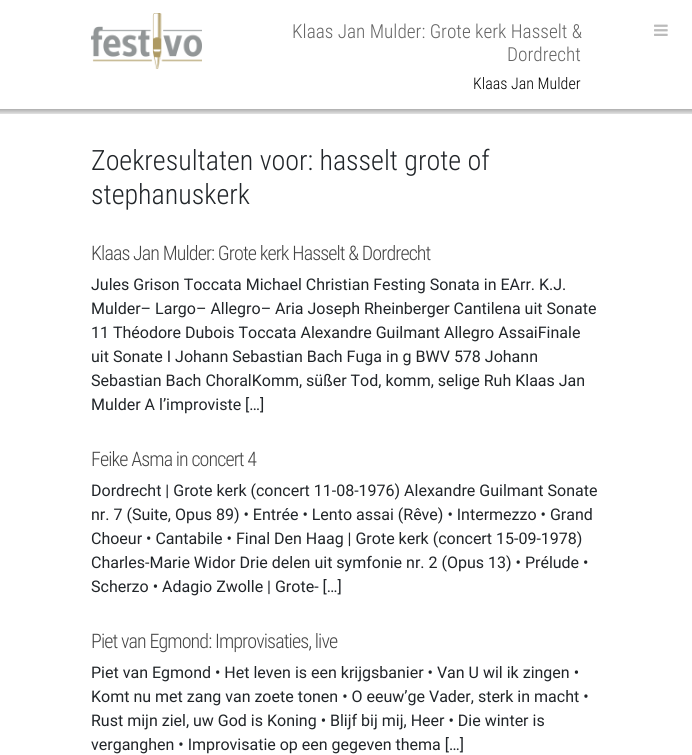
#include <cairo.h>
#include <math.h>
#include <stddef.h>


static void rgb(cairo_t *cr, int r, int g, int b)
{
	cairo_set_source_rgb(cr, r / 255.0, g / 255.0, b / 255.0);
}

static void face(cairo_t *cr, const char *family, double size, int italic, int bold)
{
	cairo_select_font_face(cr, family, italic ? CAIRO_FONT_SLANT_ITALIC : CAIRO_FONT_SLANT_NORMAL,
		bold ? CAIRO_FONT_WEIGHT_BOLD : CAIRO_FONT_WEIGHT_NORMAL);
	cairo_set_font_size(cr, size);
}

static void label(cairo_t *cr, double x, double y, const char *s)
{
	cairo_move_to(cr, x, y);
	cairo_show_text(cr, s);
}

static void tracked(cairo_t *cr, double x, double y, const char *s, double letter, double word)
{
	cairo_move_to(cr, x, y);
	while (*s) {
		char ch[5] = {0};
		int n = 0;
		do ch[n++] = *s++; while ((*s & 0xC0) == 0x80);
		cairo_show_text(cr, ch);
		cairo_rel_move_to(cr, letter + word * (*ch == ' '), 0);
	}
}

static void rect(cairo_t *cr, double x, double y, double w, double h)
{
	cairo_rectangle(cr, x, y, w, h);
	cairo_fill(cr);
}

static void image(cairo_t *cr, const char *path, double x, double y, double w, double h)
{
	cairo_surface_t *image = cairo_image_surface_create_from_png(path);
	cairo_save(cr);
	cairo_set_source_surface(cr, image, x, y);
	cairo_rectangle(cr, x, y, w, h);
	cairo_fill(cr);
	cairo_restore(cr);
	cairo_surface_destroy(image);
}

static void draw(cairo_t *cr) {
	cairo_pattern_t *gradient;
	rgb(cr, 255, 255, 255);
	cairo_paint(cr);
	image(cr, "image0.png", 91, 13, 111, 56);
	face(cr, "Roboto Condensed Light", 19.25, 0, 0);
	rgb(cr, 101, 101, 101);
	label(cr, 292, 38, "Klaas Jan Mulder: Grote kerk Hasselt &");
	label(cr, 507, 61, "Dordrecht");
	face(cr, "Roboto Condensed Light", 16, 0, 0);
	rgb(cr, 0, 0, 0);
	label(cr, 473, 89, "Klaas Jan Mulder");
	image(cr, "image1.png", 654, 24, 14, 12);
	gradient = cairo_pattern_create_linear(346, 109, 346, 114);
	cairo_pattern_add_color_stop_rgba(gradient, 0, 0.682, 0.682, 0.682, 1);
	cairo_pattern_add_color_stop_rgba(gradient, 1, 0.886, 0.886, 0.886, 1);
	cairo_set_source(cr, gradient);
	cairo_pattern_destroy(gradient);
	rect(cr, 0, 109, 692, 5);
	face(cr, "Roboto Condensed Light", 28, 0, 0);
	rgb(cr, 33, 37, 41);
	label(cr, 91, 170, "Zoekresultaten voor: hasselt grote of");
	label(cr, 91, 204, "stephanuskerk");
	face(cr, "Roboto Condensed Light", 20, 0, 0);
	rgb(cr, 68, 68, 68);
	tracked(cr, 91, 260, "Klaas Jan Mulder: Grote kerk Hasselt & Dordrecht", -0.9, 0);
	face(cr, "Roboto", 16, 0, 0);
	rgb(cr, 33, 37, 41);
	label(cr, 91, 290, "Jules Grison Toccata Michael Christian Festing Sonata in EArr. K.J.");
	label(cr, 91, 314, "Mulder– Largo– Allegro– Aria Joseph Rheinberger Cantilena uit Sonate");
	label(cr, 91, 338, "11 Théodore Dubois Toccata Alexandre Guilmant Allegro AssaiFinale");
	label(cr, 91, 362, "uit Sonate I Johann Sebastian Bach Fuga in g BWV 578 Johann");
	label(cr, 91, 386, "Sebastian Bach ChoralKomm, süßer Tod, komm, selige Ruh Klaas Jan");
	label(cr, 91, 410, "Mulder A l’improviste […]");
	face(cr, "Roboto Condensed Light", 20, 0, 0);
	rgb(cr, 68, 68, 68);
	tracked(cr, 91, 466, "Feike Asma in concert 4", -0.9, 0);
	face(cr, "Roboto", 16, 0, 0);
	rgb(cr, 33, 37, 41);
	label(cr, 91, 496, "Dordrecht | Grote kerk (concert 11-08-1976) Alexandre Guilmant Sonate");
	label(cr, 91, 520, "nr. 7 (Suite, Opus 89) • Entrée • Lento assai (Rêve) • Intermezzo • Grand");
	label(cr, 91, 544, "Choeur • Cantabile • Final Den Haag | Grote kerk (concert 15-09-1978)");
	label(cr, 91, 568, "Charles-Marie Widor Drie delen uit symfonie nr. 2 (Opus 13) • Prélude •");
	label(cr, 91, 592, "Scherzo • Adagio Zwolle | Grote- […]");
	face(cr, "Roboto Condensed Light", 20, 0, 0);
	rgb(cr, 68, 68, 68);
	tracked(cr, 91, 648, "Piet van Egmond: Improvisaties, live", -0.9, 0);
	face(cr, "Roboto", 16, 0, 0);
	rgb(cr, 33, 37, 41);
	label(cr, 91, 678, "Piet van Egmond • Het leven is een krijgsbanier • Van U wil ik zingen •");
	label(cr, 91, 702, "Komt nu met zang van zoete tonen • O eeuw’ge Vader, sterk in macht •");
	label(cr, 91, 726, "Rust mijn ziel, uw God is Koning • Blijf bij mij, Heer • Die winter is");
	label(cr, 91, 750, "verganghen • Improvisatie op een gegeven thema […]");
}

int main(void) {
	cairo_surface_t *surface = cairo_image_surface_create(CAIRO_FORMAT_RGB24, 692, 755);
	cairo_t *cr = cairo_create(surface);
	cairo_font_options_t *options = cairo_font_options_create();
	cairo_font_options_set_hint_metrics(options, CAIRO_HINT_METRICS_OFF);
	cairo_font_options_set_hint_style(options, CAIRO_HINT_STYLE_NONE);
	cairo_set_font_options(cr, options);
	cairo_set_miter_limit(cr, 4);
	draw(cr);
	cairo_surface_write_to_png(surface, "render.png");
	cairo_font_options_destroy(options);
	cairo_destroy(cr);
	cairo_surface_destroy(surface);
	return 0;
}
